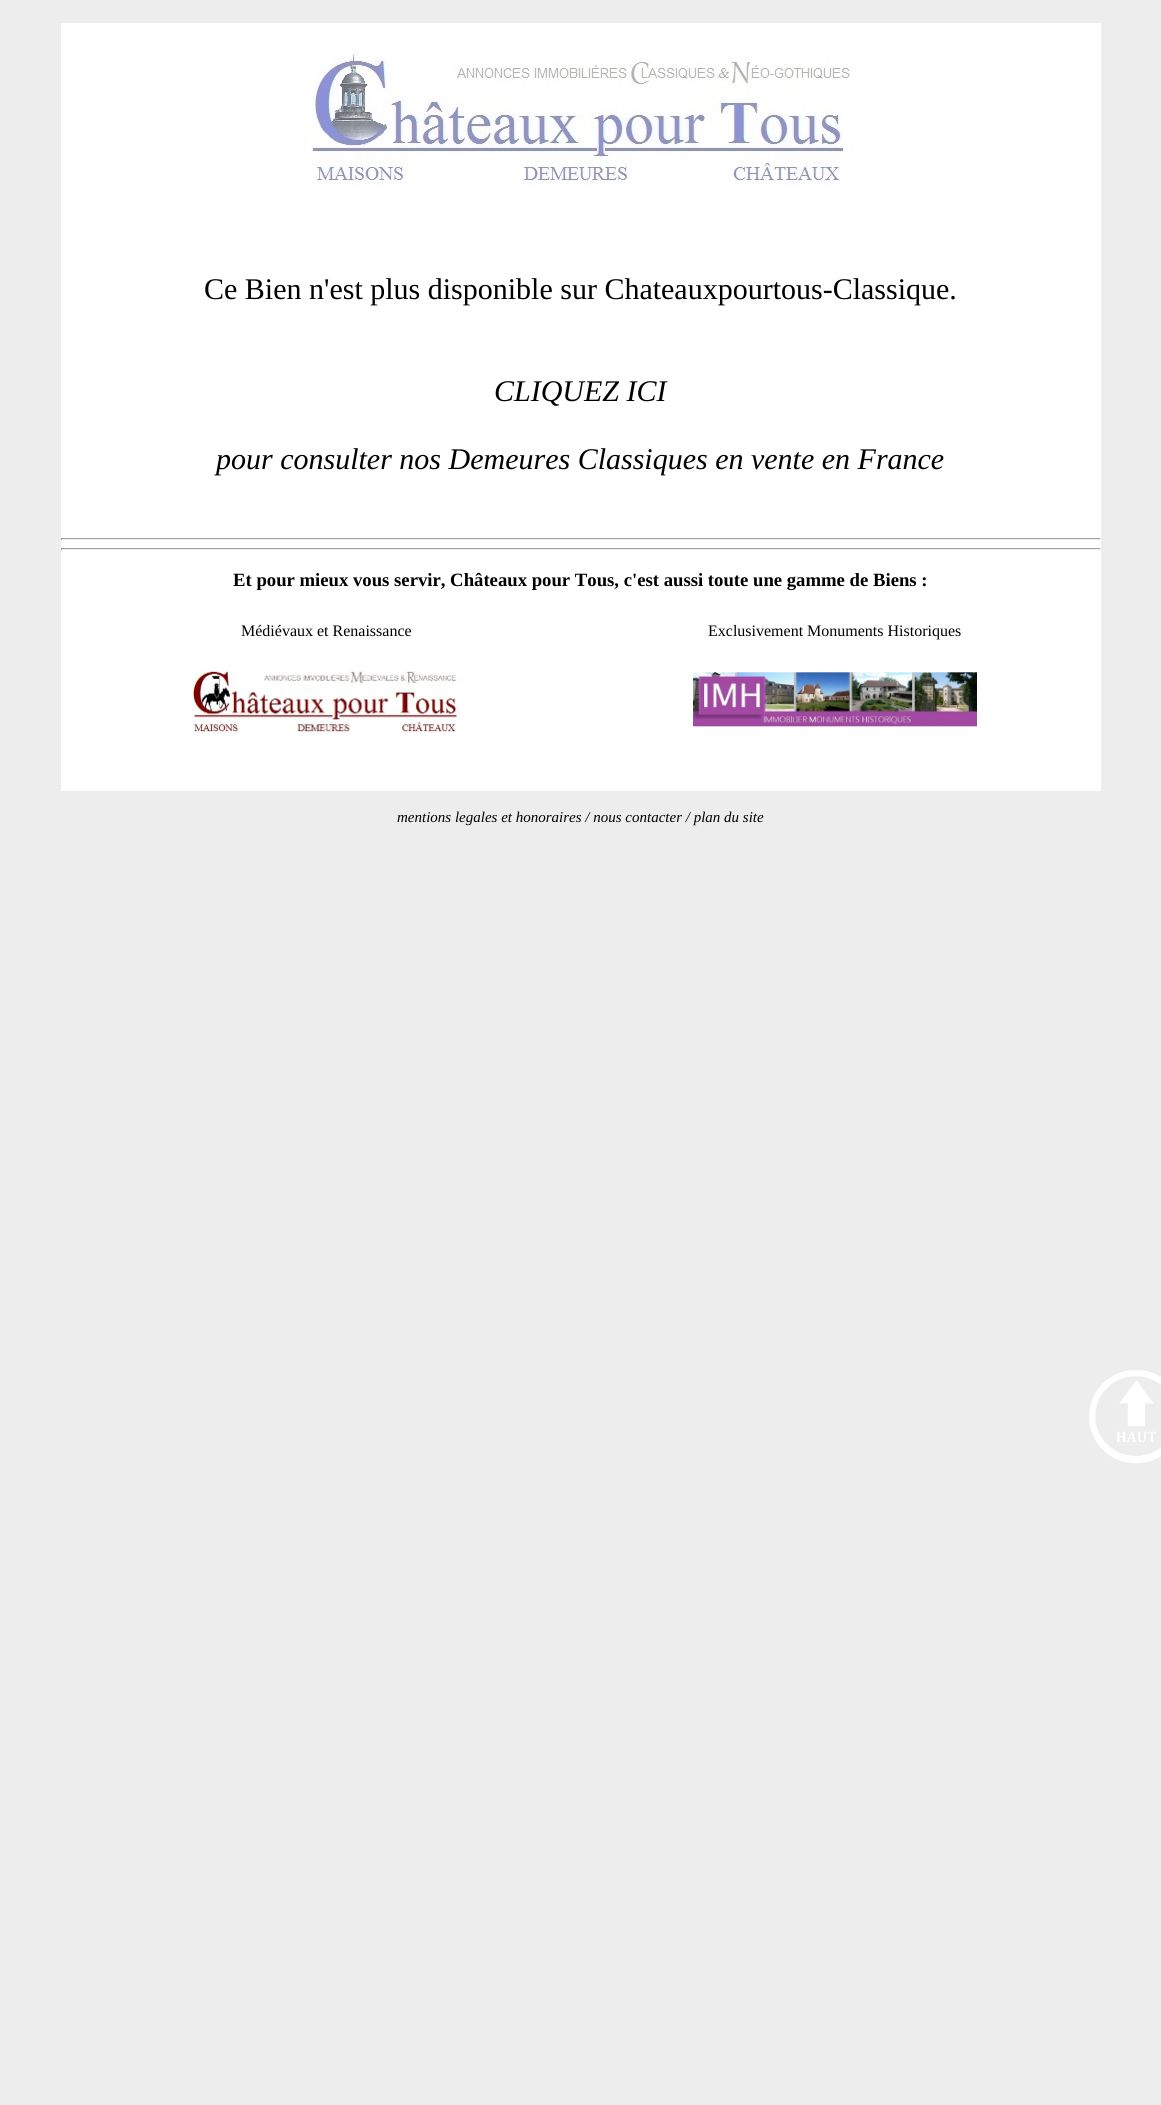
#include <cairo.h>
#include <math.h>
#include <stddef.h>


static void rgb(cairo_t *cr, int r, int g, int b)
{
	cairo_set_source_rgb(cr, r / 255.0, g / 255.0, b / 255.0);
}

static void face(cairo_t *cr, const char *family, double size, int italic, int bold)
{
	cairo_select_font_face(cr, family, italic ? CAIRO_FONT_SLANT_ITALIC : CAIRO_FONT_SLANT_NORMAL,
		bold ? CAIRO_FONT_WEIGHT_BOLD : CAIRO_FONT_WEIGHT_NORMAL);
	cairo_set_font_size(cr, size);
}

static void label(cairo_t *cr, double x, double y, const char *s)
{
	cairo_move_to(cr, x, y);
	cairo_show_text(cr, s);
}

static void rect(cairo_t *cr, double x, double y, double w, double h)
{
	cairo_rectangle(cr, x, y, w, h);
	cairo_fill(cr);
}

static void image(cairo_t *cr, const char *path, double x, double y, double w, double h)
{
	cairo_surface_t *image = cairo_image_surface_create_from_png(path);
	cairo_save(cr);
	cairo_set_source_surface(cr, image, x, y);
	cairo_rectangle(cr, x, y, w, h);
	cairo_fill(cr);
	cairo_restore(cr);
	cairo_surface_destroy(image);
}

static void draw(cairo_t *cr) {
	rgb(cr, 237, 237, 237);
	cairo_paint(cr);
	rgb(cr, 255, 255, 255);
	rect(cr, 61, 23, 1040, 768);
	image(cr, "image0.png", 301, 51, 554, 134);
	face(cr, "Liberation Serif", 30, 0, 0);
	rgb(cr, 0, 0, 0);
	label(cr, 204, 299, "Ce Bien n'est plus disponible sur Chateauxpourtous-Classique.");
	face(cr, "Liberation Serif", 30, 1, 0);
	label(cr, 494, 401, "CLIQUEZ ICI");
	label(cr, 216, 469, "pour consulter nos Demeures Classiques en vente en France");
	rgb(cr, 159, 159, 159);
	rect(cr, 61, 538, 1040, 1);
	rgb(cr, 238, 238, 238);
	rect(cr, 1100, 538, 1, 2);
	rect(cr, 61, 539, 1040, 1);
	rgb(cr, 159, 159, 159);
	rect(cr, 61, 538, 1, 2);
	rect(cr, 61, 548, 1040, 1);
	rgb(cr, 238, 238, 238);
	rect(cr, 1100, 548, 1, 2);
	rect(cr, 61, 549, 1040, 1);
	rgb(cr, 159, 159, 159);
	rect(cr, 61, 548, 1, 2);
	face(cr, "Liberation Serif", 18.7, 0, 1);
	rgb(cr, 0, 0, 0);
	label(cr, 233, 586, "Et pour mieux vous servir, Châteaux pour Tous, c'est aussi toute une gamme de Biens :");
	face(cr, "Liberation Serif", 16, 0, 0);
	label(cr, 241, 636, "Médiévaux et Renaissance");
	label(cr, 708, 636, "Exclusivement Monuments Historiques");
	image(cr, "image1.png", 192, 670, 269, 64);
	image(cr, "image2.png", 693, 672, 284, 55);
	image(cr, "image3.png", 1089, 1370, 72, 94);
	face(cr, "Liberation Serif", 15, 1, 0);
	label(cr, 397, 822, "mentions legales et honoraires / nous contacter / plan du site");
}

int main(void) {
	cairo_surface_t *surface = cairo_image_surface_create(CAIRO_FORMAT_RGB24, 1161, 2105);
	cairo_t *cr = cairo_create(surface);
	cairo_font_options_t *options = cairo_font_options_create();
	cairo_font_options_set_hint_metrics(options, CAIRO_HINT_METRICS_OFF);
	cairo_font_options_set_hint_style(options, CAIRO_HINT_STYLE_NONE);
	cairo_set_font_options(cr, options);
	cairo_set_miter_limit(cr, 4);
	draw(cr);
	cairo_surface_write_to_png(surface, "render.png");
	cairo_font_options_destroy(options);
	cairo_destroy(cr);
	cairo_surface_destroy(surface);
	return 0;
}
